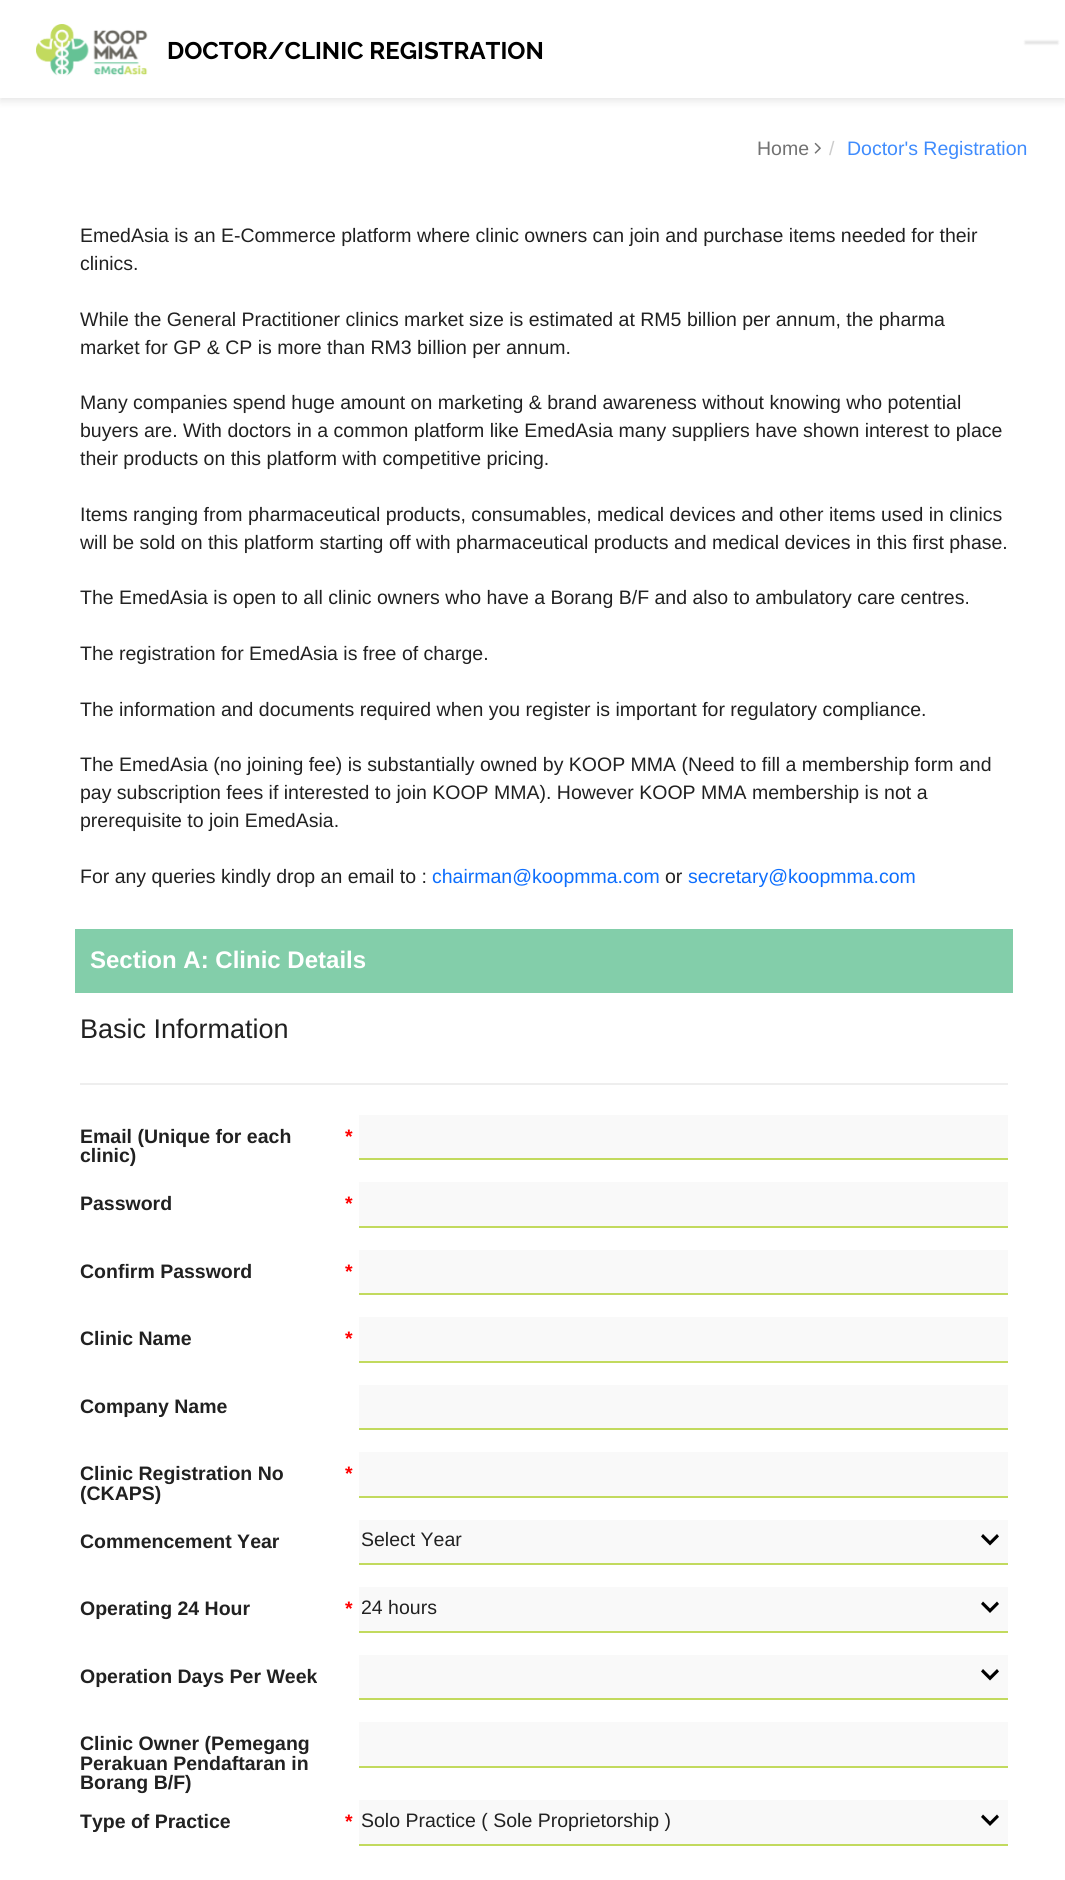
#include <cairo.h>
#include <math.h>
#include <stddef.h>


static void rgb(cairo_t *cr, int r, int g, int b)
{
	cairo_set_source_rgb(cr, r / 255.0, g / 255.0, b / 255.0);
}

static void face(cairo_t *cr, const char *family, double size, int italic, int bold)
{
	cairo_select_font_face(cr, family, italic ? CAIRO_FONT_SLANT_ITALIC : CAIRO_FONT_SLANT_NORMAL,
		bold ? CAIRO_FONT_WEIGHT_BOLD : CAIRO_FONT_WEIGHT_NORMAL);
	cairo_set_font_size(cr, size);
}

static void label(cairo_t *cr, double x, double y, const char *s)
{
	cairo_move_to(cr, x, y);
	cairo_show_text(cr, s);
}

static void rect(cairo_t *cr, double x, double y, double w, double h)
{
	cairo_rectangle(cr, x, y, w, h);
	cairo_fill(cr);
}

static void rrect(cairo_t *cr, double x, double y, double w, double h, double r)
{
	cairo_new_sub_path(cr);
	cairo_arc(cr, x + w - r, y + h - r, r, 0, M_PI / 2);
	cairo_arc(cr, x + r, y + h - r, r, M_PI / 2, M_PI);
	cairo_arc(cr, x + r, y + r, r, M_PI, 1.5 * M_PI);
	cairo_arc(cr, x + w - r, y + r, r, 1.5 * M_PI, 2 * M_PI);
	cairo_close_path(cr);
}

static void soft_shadow(cairo_t *cr, double x, double y, double w, double h, double r, double blur, double alpha)
{
	cairo_push_group_with_content(cr, CAIRO_CONTENT_ALPHA);
	cairo_set_operator(cr, CAIRO_OPERATOR_SOURCE);
	for (int i = 15; i >= -15 && fmin(w, h) + blur * i / 3 > 0; i -= 2) {
		double e = blur * i / 6;
		cairo_set_source_rgba(cr, 0, 0, 0, alpha * erfc((i - 1) / 8.5) / 2);
		rrect(cr, x - e, y - e, w + 2 * e, h + 2 * e, fmax(0, fmin(r + e + blur * .6, fmin(w, h) / 2 + e)));
		cairo_fill(cr);
	}
	cairo_pattern_t *soft = cairo_pop_group(cr);
	cairo_mask(cr, soft);
	cairo_pattern_destroy(soft);
}

static void image(cairo_t *cr, const char *path, double x, double y, double w, double h)
{
	cairo_surface_t *image = cairo_image_surface_create_from_png(path);
	cairo_save(cr);
	cairo_set_source_surface(cr, image, x, y);
	cairo_rectangle(cr, x, y, w, h);
	cairo_fill(cr);
	cairo_restore(cr);
	cairo_surface_destroy(image);
}

static void draw(cairo_t *cr) {
	rgb(cr, 255, 255, 255);
	cairo_paint(cr);
	rgb(cr, 0, 0, 0);
	soft_shadow(cr, 0, 3, 1065, 98, 0, 4, 0.1);
	rgb(cr, 255, 255, 255);
	rect(cr, 0, 0, 1065, 98);
	image(cr, "image0.png", 36, 24, 112, 52);
	face(cr, "Raleway Thin", 24, 0, 0);
	rgb(cr, 0, 0, 0);
	label(cr, 167, 59, "DOCTOR/CLINIC REGISTRATION");
	rgb(cr, 0, 0, 0);
	soft_shadow(cr, 1025, 41, 33, 3, 0, 1, 0.12);
	face(cr, "Liberation Sans", 19.5, 0, 0);
	rgb(cr, 114, 114, 114);
	label(cr, 757, 155, "Home");
	image(cr, "image1.png", 814, 142, 7, 12);
	rgb(cr, 204, 204, 204);
	label(cr, 829, 155, "/");
	rgb(cr, 64, 140, 253);
	label(cr, 847, 155, "Doctor's Registration");
	rgb(cr, 33, 33, 33);
	label(cr, 80, 242, "EmedAsia is an E-Commerce platform where clinic owners can join and purchase items needed for their");
	label(cr, 80, 270, "clinics.");
	label(cr, 80, 326, "While the General Practitioner clinics market size is estimated at RM5 billion per annum, the pharma");
	label(cr, 80, 354, "market for GP & CP is more than RM3 billion per annum.");
	label(cr, 80, 409, "Many companies spend huge amount on marketing & brand awareness without knowing who potential");
	label(cr, 80, 437, "buyers are. With doctors in a common platform like EmedAsia many suppliers have shown interest to place");
	label(cr, 80, 465, "their products on this platform with competitive pricing.");
	label(cr, 80, 521, "Items ranging from pharmaceutical products, consumables, medical devices and other items used in clinics");
	label(cr, 80, 549, "will be sold on this platform starting off with pharmaceutical products and medical devices in this first phase.");
	label(cr, 80, 604, "The EmedAsia is open to all clinic owners who have a Borang B/F and also to ambulatory care centres.");
	label(cr, 80, 660, "The registration for EmedAsia is free of charge.");
	label(cr, 80, 716, "The information and documents required when you register is important for regulatory compliance.");
	label(cr, 80, 771, "The EmedAsia (no joining fee) is substantially owned by KOOP MMA (Need to fill a membership form and");
	label(cr, 80, 799, "pay subscription fees if interested to join KOOP MMA). However KOOP MMA membership is not a");
	label(cr, 80, 827, "prerequisite to join EmedAsia.");
	label(cr, 80, 883, "For any queries kindly drop an email to :");
	rgb(cr, 13, 110, 253);
	label(cr, 432, 883, "chairman@koopmma.com");
	rgb(cr, 33, 33, 33);
	label(cr, 665, 883, "or");
	rgb(cr, 13, 110, 253);
	label(cr, 688, 883, "secretary@koopmma.com");
	rgb(cr, 131, 206, 170);
	rect(cr, 75, 929, 938, 64);
	face(cr, "Liberation Sans", 24, 0, 1);
	rgb(cr, 255, 255, 255);
	label(cr, 90, 968, "Section A: Clinic Details");
	face(cr, "Liberation Sans", 27, 0, 0);
	rgb(cr, 33, 33, 33);
	label(cr, 80, 1038, "Basic Information");
	rgb(cr, 238, 238, 238);
	rect(cr, 80, 1083, 928, 2);
	face(cr, "Liberation Sans", 19.5, 0, 1);
	rgb(cr, 33, 33, 33);
	label(cr, 80, 1143, "Email (Unique for each");
	rgb(cr, 255, 0, 0);
	label(cr, 345, 1143, "*");
	rgb(cr, 33, 33, 33);
	label(cr, 80, 1162, "clinic)");
	rgb(cr, 249, 249, 249);
	rect(cr, 359, 1115, 649, 43);
	rgb(cr, 194, 218, 94);
	rect(cr, 359, 1158, 649, 2);
	rgb(cr, 33, 33, 33);
	label(cr, 80, 1210, "Password");
	rgb(cr, 255, 0, 0);
	label(cr, 345, 1210, "*");
	rgb(cr, 249, 249, 249);
	rect(cr, 359, 1182, 649, 44);
	rgb(cr, 194, 218, 94);
	rect(cr, 359, 1226, 649, 2);
	rgb(cr, 33, 33, 33);
	label(cr, 80, 1278, "Confirm Password");
	rgb(cr, 255, 0, 0);
	label(cr, 345, 1278, "*");
	rgb(cr, 249, 249, 249);
	rect(cr, 359, 1250, 649, 43);
	rgb(cr, 194, 218, 94);
	rect(cr, 359, 1293, 649, 2);
	rgb(cr, 33, 33, 33);
	label(cr, 80, 1345, "Clinic Name");
	rgb(cr, 255, 0, 0);
	label(cr, 345, 1345, "*");
	rgb(cr, 249, 249, 249);
	rect(cr, 359, 1317, 649, 44);
	rgb(cr, 194, 218, 94);
	rect(cr, 359, 1361, 649, 2);
	rgb(cr, 33, 33, 33);
	label(cr, 80, 1413, "Company Name");
	rgb(cr, 249, 249, 249);
	rect(cr, 359, 1385, 649, 43);
	rgb(cr, 194, 218, 94);
	rect(cr, 359, 1428, 649, 2);
	rgb(cr, 33, 33, 33);
	label(cr, 80, 1480, "Clinic Registration No");
	rgb(cr, 255, 0, 0);
	label(cr, 345, 1480, "*");
	rgb(cr, 33, 33, 33);
	label(cr, 80, 1500, "(CKAPS)");
	rgb(cr, 249, 249, 249);
	rect(cr, 359, 1452, 649, 44);
	rgb(cr, 194, 218, 94);
	rect(cr, 359, 1496, 649, 2);
	rgb(cr, 33, 33, 33);
	label(cr, 80, 1548, "Commencement Year");
	rgb(cr, 249, 249, 249);
	rect(cr, 359, 1520, 649, 43);
	rgb(cr, 0, 0, 0);
	cairo_new_path(cr);
	cairo_move_to(cr, 983, 1534);
	cairo_line_to(cr, 990, 1541);
	cairo_line_to(cr, 997, 1534);
	cairo_line_to(cr, 999, 1536.5);
	cairo_line_to(cr, 990, 1545.5);
	cairo_line_to(cr, 981, 1536.5);
	cairo_close_path(cr);
	cairo_fill(cr);
	rgb(cr, 194, 218, 94);
	rect(cr, 359, 1563, 649, 2);
	face(cr, "Liberation Sans", 19.5, 0, 0);
	rgb(cr, 33, 33, 33);
	label(cr, 361, 1546, "Select Year");
	face(cr, "Liberation Sans", 19.5, 0, 1);
	label(cr, 80, 1615, "Operating 24 Hour");
	rgb(cr, 255, 0, 0);
	label(cr, 345, 1615, "*");
	rgb(cr, 249, 249, 249);
	rect(cr, 359, 1587, 649, 44);
	rgb(cr, 0, 0, 0);
	cairo_new_path(cr);
	cairo_move_to(cr, 983, 1601.5);
	cairo_line_to(cr, 990, 1608.5);
	cairo_line_to(cr, 997, 1601.5);
	cairo_line_to(cr, 999, 1604);
	cairo_line_to(cr, 990, 1613);
	cairo_line_to(cr, 981, 1604);
	cairo_close_path(cr);
	cairo_fill(cr);
	rgb(cr, 194, 218, 94);
	rect(cr, 359, 1631, 649, 2);
	face(cr, "Liberation Sans", 19.5, 0, 0);
	rgb(cr, 33, 33, 33);
	label(cr, 361, 1614, "24 hours");
	face(cr, "Liberation Sans", 19.5, 0, 1);
	label(cr, 80, 1683, "Operation Days Per Week");
	rgb(cr, 249, 249, 249);
	rect(cr, 359, 1655, 649, 43);
	rgb(cr, 0, 0, 0);
	cairo_new_path(cr);
	cairo_move_to(cr, 983, 1669);
	cairo_line_to(cr, 990, 1676);
	cairo_line_to(cr, 997, 1669);
	cairo_line_to(cr, 999, 1671.5);
	cairo_line_to(cr, 990, 1680.5);
	cairo_line_to(cr, 981, 1671.5);
	cairo_close_path(cr);
	cairo_fill(cr);
	rgb(cr, 194, 218, 94);
	rect(cr, 359, 1698, 649, 2);
	rgb(cr, 33, 33, 33);
	label(cr, 80, 1750, "Clinic Owner (Pemegang");
	label(cr, 80, 1770, "Perakuan Pendaftaran in");
	label(cr, 80, 1789, "Borang B/F)");
	rgb(cr, 249, 249, 249);
	rect(cr, 359, 1722, 649, 44);
	rgb(cr, 194, 218, 94);
	rect(cr, 359, 1766, 649, 2);
	rgb(cr, 33, 33, 33);
	label(cr, 80, 1828, "Type of Practice");
	rgb(cr, 255, 0, 0);
	label(cr, 345, 1828, "*");
	rgb(cr, 249, 249, 249);
	rect(cr, 359, 1800, 649, 44);
	rgb(cr, 0, 0, 0);
	cairo_new_path(cr);
	cairo_move_to(cr, 983, 1814.5);
	cairo_line_to(cr, 990, 1821.5);
	cairo_line_to(cr, 997, 1814.5);
	cairo_line_to(cr, 999, 1817);
	cairo_line_to(cr, 990, 1826);
	cairo_line_to(cr, 981, 1817);
	cairo_close_path(cr);
	cairo_fill(cr);
	rgb(cr, 194, 218, 94);
	rect(cr, 359, 1844, 649, 2);
	face(cr, "Liberation Sans", 19.5, 0, 0);
	rgb(cr, 33, 33, 33);
	label(cr, 361, 1827, "Solo Practice ( Sole Proprietorship )");
}

int main(void) {
	cairo_surface_t *surface = cairo_image_surface_create(CAIRO_FORMAT_RGB24, 1065, 1880);
	cairo_t *cr = cairo_create(surface);
	cairo_font_options_t *options = cairo_font_options_create();
	cairo_font_options_set_hint_metrics(options, CAIRO_HINT_METRICS_OFF);
	cairo_font_options_set_hint_style(options, CAIRO_HINT_STYLE_NONE);
	cairo_set_font_options(cr, options);
	cairo_set_miter_limit(cr, 4);
	draw(cr);
	cairo_surface_write_to_png(surface, "render.png");
	cairo_font_options_destroy(options);
	cairo_destroy(cr);
	cairo_surface_destroy(surface);
	return 0;
}
